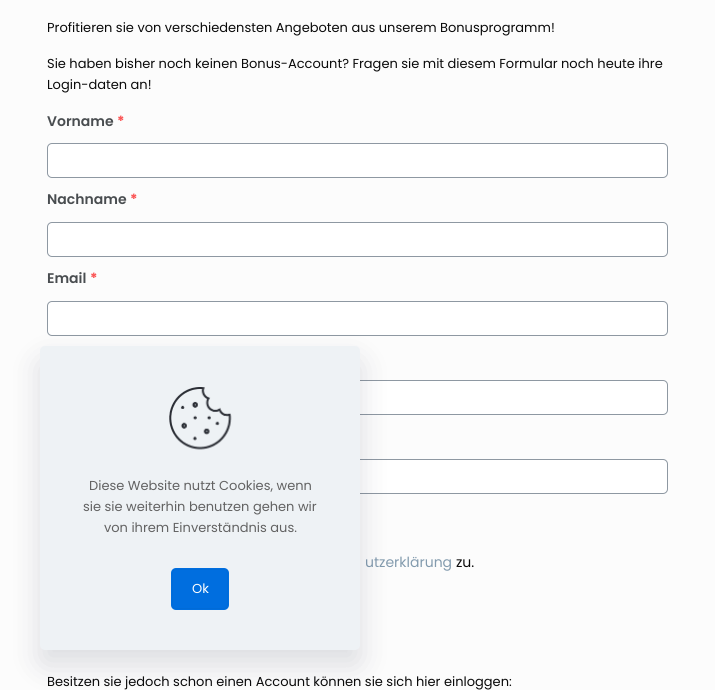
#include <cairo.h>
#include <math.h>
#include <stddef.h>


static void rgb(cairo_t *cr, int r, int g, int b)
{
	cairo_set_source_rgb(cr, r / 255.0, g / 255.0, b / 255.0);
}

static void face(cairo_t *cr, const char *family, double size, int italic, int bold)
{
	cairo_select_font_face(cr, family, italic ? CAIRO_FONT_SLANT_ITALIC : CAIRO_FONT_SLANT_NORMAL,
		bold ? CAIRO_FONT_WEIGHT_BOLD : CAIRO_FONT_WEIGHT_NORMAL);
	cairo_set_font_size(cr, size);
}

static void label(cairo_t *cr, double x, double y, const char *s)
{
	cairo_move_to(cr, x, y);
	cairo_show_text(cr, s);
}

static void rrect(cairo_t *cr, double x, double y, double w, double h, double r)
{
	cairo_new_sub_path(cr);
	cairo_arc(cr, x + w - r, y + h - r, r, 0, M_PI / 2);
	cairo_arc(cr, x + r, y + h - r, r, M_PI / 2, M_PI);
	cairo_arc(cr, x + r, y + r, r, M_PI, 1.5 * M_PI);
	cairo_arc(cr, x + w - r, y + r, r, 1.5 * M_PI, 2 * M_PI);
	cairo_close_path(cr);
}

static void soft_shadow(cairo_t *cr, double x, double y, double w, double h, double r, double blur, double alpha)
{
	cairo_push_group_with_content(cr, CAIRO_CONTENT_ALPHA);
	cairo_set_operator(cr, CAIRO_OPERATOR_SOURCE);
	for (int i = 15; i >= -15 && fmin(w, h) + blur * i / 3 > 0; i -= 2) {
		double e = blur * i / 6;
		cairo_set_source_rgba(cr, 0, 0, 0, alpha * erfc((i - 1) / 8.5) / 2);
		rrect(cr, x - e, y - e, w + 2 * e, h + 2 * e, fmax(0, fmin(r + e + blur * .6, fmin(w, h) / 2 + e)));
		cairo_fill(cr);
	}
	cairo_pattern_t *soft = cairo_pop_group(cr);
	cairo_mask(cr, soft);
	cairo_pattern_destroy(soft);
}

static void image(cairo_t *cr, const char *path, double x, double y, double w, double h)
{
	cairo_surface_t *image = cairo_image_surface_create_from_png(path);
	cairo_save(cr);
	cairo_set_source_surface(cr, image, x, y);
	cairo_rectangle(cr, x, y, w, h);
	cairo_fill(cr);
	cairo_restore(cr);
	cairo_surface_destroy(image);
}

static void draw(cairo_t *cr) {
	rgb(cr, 252, 252, 252);
	cairo_paint(cr);
	face(cr, "Poppins", 13, 0, 0);
	rgb(cr, 10, 10, 10);
	label(cr, 47, 32, "Profitieren sie von verschiedensten Angeboten aus unserem Bonusprogramm!");
	label(cr, 47, 68, "Sie haben bisher noch keinen Bonus-Account? Fragen sie mit diesem Formular noch heute ihre");
	label(cr, 47, 89, "Login-daten an!");
	face(cr, "Poppins SemiBold", 14, 0, 0);
	rgb(cr, 73, 77, 80);
	label(cr, 47, 126, "Vorname");
	face(cr, "Poppins", 14, 0, 1);
	rgb(cr, 250, 82, 82);
	label(cr, 117, 126, "*");
	rgb(cr, 255, 255, 255);
	rrect(cr, 47.5, 143.5, 620, 34, 4.5);
	cairo_fill_preserve(cr);
	rgb(cr, 142, 152, 162);
	cairo_set_line_width(cr, 1);
	cairo_stroke(cr);
	face(cr, "Poppins SemiBold", 14, 0, 0);
	rgb(cr, 73, 77, 80);
	label(cr, 47, 204, "Nachname");
	face(cr, "Poppins", 14, 0, 1);
	rgb(cr, 250, 82, 82);
	label(cr, 130, 204, "*");
	rgb(cr, 255, 255, 255);
	rrect(cr, 47.5, 222.5, 620, 34, 4.5);
	cairo_fill_preserve(cr);
	rgb(cr, 142, 152, 162);
	cairo_stroke(cr);
	face(cr, "Poppins SemiBold", 14, 0, 0);
	rgb(cr, 73, 77, 80);
	label(cr, 47, 283, "Email");
	face(cr, "Poppins", 14, 0, 1);
	rgb(cr, 250, 82, 82);
	label(cr, 90, 283, "*");
	rgb(cr, 255, 255, 255);
	rrect(cr, 47.5, 301.5, 620, 34, 4.5);
	cairo_fill_preserve(cr);
	rgb(cr, 142, 152, 162);
	cairo_stroke(cr);
	rgb(cr, 255, 255, 255);
	rrect(cr, 47.5, 380.5, 620, 34, 4.5);
	cairo_fill_preserve(cr);
	rgb(cr, 142, 152, 162);
	cairo_stroke(cr);
	rgb(cr, 255, 255, 255);
	rrect(cr, 47.5, 459.5, 620, 34, 4.5);
	cairo_fill_preserve(cr);
	rgb(cr, 142, 152, 162);
	cairo_stroke(cr);
	face(cr, "Poppins", 14, 0, 0);
	rgb(cr, 131, 155, 174);
	label(cr, 365, 567, "utzerklärung");
	rgb(cr, 10, 10, 10);
	label(cr, 456, 567, "zu.");
	face(cr, "Poppins", 13, 0, 0);
	label(cr, 47, 686, "Besitzen sie jedoch schon einen Account können sie sich hier einloggen:");
	rgb(cr, 1, 7, 39);
	soft_shadow(cr, 40, 361, 320, 304, 5, 15, 0.13);
	rgb(cr, 238, 242, 245);
	rrect(cr, 40, 346, 320, 304, 5);
	cairo_fill(cr);
	image(cr, "image0.png", 169, 387, 63, 63);
	rgb(cr, 98, 98, 98);
	label(cr, 89, 490, "Diese Website nutzt Cookies, wenn");
	label(cr, 83, 511, "sie sie weiterhin benutzen gehen wir");
	label(cr, 104, 532, "von ihrem Einverständnis aus.");
	rgb(cr, 0, 110, 223);
	rrect(cr, 171, 568, 58, 42, 5);
	cairo_fill(cr);
	rrect(cr, 172.5, 569.5, 55, 39, 3.5);
	rgb(cr, 0, 107, 216);
	cairo_stroke(cr);
	rgb(cr, 255, 255, 255);
	label(cr, 192, 593, "Ok");
}

int main(void) {
	cairo_surface_t *surface = cairo_image_surface_create(CAIRO_FORMAT_RGB24, 715, 690);
	cairo_t *cr = cairo_create(surface);
	cairo_font_options_t *options = cairo_font_options_create();
	cairo_font_options_set_hint_metrics(options, CAIRO_HINT_METRICS_OFF);
	cairo_font_options_set_hint_style(options, CAIRO_HINT_STYLE_NONE);
	cairo_set_font_options(cr, options);
	cairo_set_miter_limit(cr, 4);
	draw(cr);
	cairo_surface_write_to_png(surface, "render.png");
	cairo_font_options_destroy(options);
	cairo_destroy(cr);
	cairo_surface_destroy(surface);
	return 0;
}
